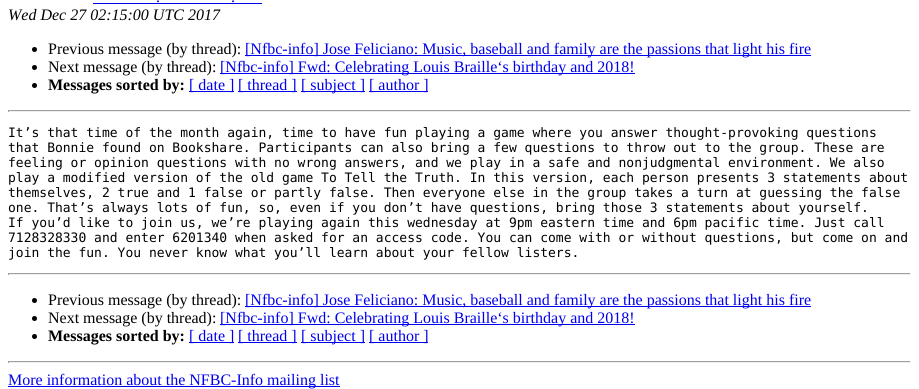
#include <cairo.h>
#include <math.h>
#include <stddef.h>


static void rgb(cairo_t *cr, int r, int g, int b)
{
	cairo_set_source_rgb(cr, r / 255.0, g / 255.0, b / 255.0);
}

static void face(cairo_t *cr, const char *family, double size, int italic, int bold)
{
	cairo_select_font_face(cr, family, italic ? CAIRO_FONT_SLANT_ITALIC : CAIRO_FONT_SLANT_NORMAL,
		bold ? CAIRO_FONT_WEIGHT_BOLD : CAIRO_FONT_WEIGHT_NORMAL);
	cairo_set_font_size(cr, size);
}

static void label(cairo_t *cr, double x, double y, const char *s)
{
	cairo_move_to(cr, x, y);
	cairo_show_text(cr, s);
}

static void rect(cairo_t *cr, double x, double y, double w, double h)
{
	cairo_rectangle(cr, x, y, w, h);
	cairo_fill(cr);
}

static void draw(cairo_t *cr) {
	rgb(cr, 255, 255, 255);
	cairo_paint(cr);
	face(cr, "Liberation Serif", 16, 0, 0);
	rgb(cr, 0, 0, 238);
	label(cr, 156, 2, ".");
	rect(cr, 93, 3, 169, 1);
	label(cr, 231, 2, ".");
	face(cr, "Liberation Serif", 16, 1, 0);
	rgb(cr, 0, 0, 0);
	label(cr, 8, 20, "Wed Dec 27 02:15:00 UTC 2017");
	cairo_new_path(cr);
	cairo_arc(cr, 34.5, 49.5, 2.5, 0, 2 * M_PI);
	cairo_fill(cr);
	face(cr, "Liberation Serif", 16, 0, 0);
	label(cr, 48, 54, "Previous message (by thread):");
	rgb(cr, 0, 0, 238);
	rect(cr, 245, 55, 566, 1);
	label(cr, 245, 54, "[Nfbc-info] Jose Feliciano: Music, baseball and family are the passions that light his fire");
	rgb(cr, 0, 0, 0);
	cairo_new_path(cr);
	cairo_arc(cr, 34.5, 67.5, 2.5, 0, 2 * M_PI);
	cairo_fill(cr);
	label(cr, 48, 72, "Next message (by thread):");
	rgb(cr, 0, 0, 238);
	rect(cr, 220, 73, 415, 1);
	label(cr, 220, 72, "[Nfbc-info] Fwd: Celebrating Louis Braille‘s birthday and 2018!");
	rgb(cr, 0, 0, 0);
	cairo_new_path(cr);
	cairo_arc(cr, 34.5, 85.5, 2.5, 0, 2 * M_PI);
	cairo_fill(cr);
	face(cr, "Liberation Serif", 16, 0, 1);
	label(cr, 48, 90, "Messages sorted by:");
	rgb(cr, 0, 0, 238);
	rect(cr, 189, 91, 45, 1);
	face(cr, "Liberation Serif", 16, 0, 0);
	label(cr, 189, 90, "[ date ]");
	rect(cr, 238, 91, 59, 1);
	label(cr, 238, 90, "[ thread ]");
	rect(cr, 301, 91, 64, 1);
	label(cr, 301, 90, "[ subject ]");
	rect(cr, 369, 91, 59, 1);
	label(cr, 369, 90, "[ author ]");
	rgb(cr, 159, 159, 159);
	rect(cr, 8, 110, 903, 1);
	rgb(cr, 238, 238, 238);
	rect(cr, 910, 110, 1, 2);
	rect(cr, 8, 111, 903, 1);
	rgb(cr, 159, 159, 159);
	rect(cr, 8, 110, 1, 2);
	face(cr, "DejaVu Sans Mono", 13, 0, 0);
	rgb(cr, 0, 0, 0);
	label(cr, 8, 137, "It’s that time of the month again, time to have fun playing a game where you answer thought-provoking questions");
	label(cr, 8, 152, "that Bonnie found on Bookshare. Participants can also bring a few questions to throw out to the group. These are");
	label(cr, 8, 167, "feeling or opinion questions with no wrong answers, and we play in a safe and nonjudgmental environment. We also");
	label(cr, 8, 182, "play a modified version of the old game To Tell the Truth. In this version, each person presents 3 statements about");
	label(cr, 8, 197, "themselves, 2 true and 1 false or partly false. Then everyone else in the group takes a turn at guessing the false");
	label(cr, 8, 212, "one. That’s always lots of fun, so, even if you don’t have questions, bring those 3 statements about yourself.");
	label(cr, 8, 227, "If you’d like to join us, we’re playing again this wednesday at 9pm eastern time and 6pm pacific time. Just call");
	label(cr, 8, 242, "7128328330 and enter 6201340 when asked for an access code. You can come with or without questions, but come on and");
	label(cr, 8, 257, "join the fun. You never know what you’ll learn about your fellow listers.");
	rgb(cr, 159, 159, 159);
	rect(cr, 8, 273, 903, 1);
	rgb(cr, 238, 238, 238);
	rect(cr, 910, 273, 1, 2);
	rect(cr, 8, 274, 903, 1);
	rgb(cr, 159, 159, 159);
	rect(cr, 8, 273, 1, 2);
	rgb(cr, 0, 0, 0);
	cairo_new_path(cr);
	cairo_arc(cr, 34.5, 300.5, 2.5, 0, 2 * M_PI);
	cairo_fill(cr);
	face(cr, "Liberation Serif", 16, 0, 0);
	label(cr, 48, 305, "Previous message (by thread):");
	rgb(cr, 0, 0, 238);
	rect(cr, 245, 306, 566, 1);
	label(cr, 245, 305, "[Nfbc-info] Jose Feliciano: Music, baseball and family are the passions that light his fire");
	rgb(cr, 0, 0, 0);
	cairo_new_path(cr);
	cairo_arc(cr, 34.5, 318.5, 2.5, 0, 2 * M_PI);
	cairo_fill(cr);
	label(cr, 48, 323, "Next message (by thread):");
	rgb(cr, 0, 0, 238);
	rect(cr, 220, 324, 415, 1);
	label(cr, 220, 323, "[Nfbc-info] Fwd: Celebrating Louis Braille‘s birthday and 2018!");
	rgb(cr, 0, 0, 0);
	cairo_new_path(cr);
	cairo_arc(cr, 34.5, 336.5, 2.5, 0, 2 * M_PI);
	cairo_fill(cr);
	face(cr, "Liberation Serif", 16, 0, 1);
	label(cr, 48, 341, "Messages sorted by:");
	rgb(cr, 0, 0, 238);
	rect(cr, 189, 342, 45, 1);
	face(cr, "Liberation Serif", 16, 0, 0);
	label(cr, 189, 341, "[ date ]");
	rect(cr, 238, 342, 59, 1);
	label(cr, 238, 341, "[ thread ]");
	rect(cr, 301, 342, 64, 1);
	label(cr, 301, 341, "[ subject ]");
	rect(cr, 369, 342, 59, 1);
	label(cr, 369, 341, "[ author ]");
	rgb(cr, 159, 159, 159);
	rect(cr, 8, 361, 903, 1);
	rgb(cr, 238, 238, 238);
	rect(cr, 910, 361, 1, 2);
	rect(cr, 8, 362, 903, 1);
	rgb(cr, 159, 159, 159);
	rect(cr, 8, 361, 1, 2);
	rgb(cr, 0, 0, 238);
	rect(cr, 8, 386, 332, 1);
	label(cr, 8, 385, "More information about the NFBC-Info mailing list");
}

int main(void) {
	cairo_surface_t *surface = cairo_image_surface_create(CAIRO_FORMAT_RGB24, 919, 389);
	cairo_t *cr = cairo_create(surface);
	cairo_font_options_t *options = cairo_font_options_create();
	cairo_font_options_set_hint_metrics(options, CAIRO_HINT_METRICS_OFF);
	cairo_font_options_set_hint_style(options, CAIRO_HINT_STYLE_NONE);
	cairo_set_font_options(cr, options);
	cairo_set_miter_limit(cr, 4);
	draw(cr);
	cairo_surface_write_to_png(surface, "render.png");
	cairo_font_options_destroy(options);
	cairo_destroy(cr);
	cairo_surface_destroy(surface);
	return 0;
}
